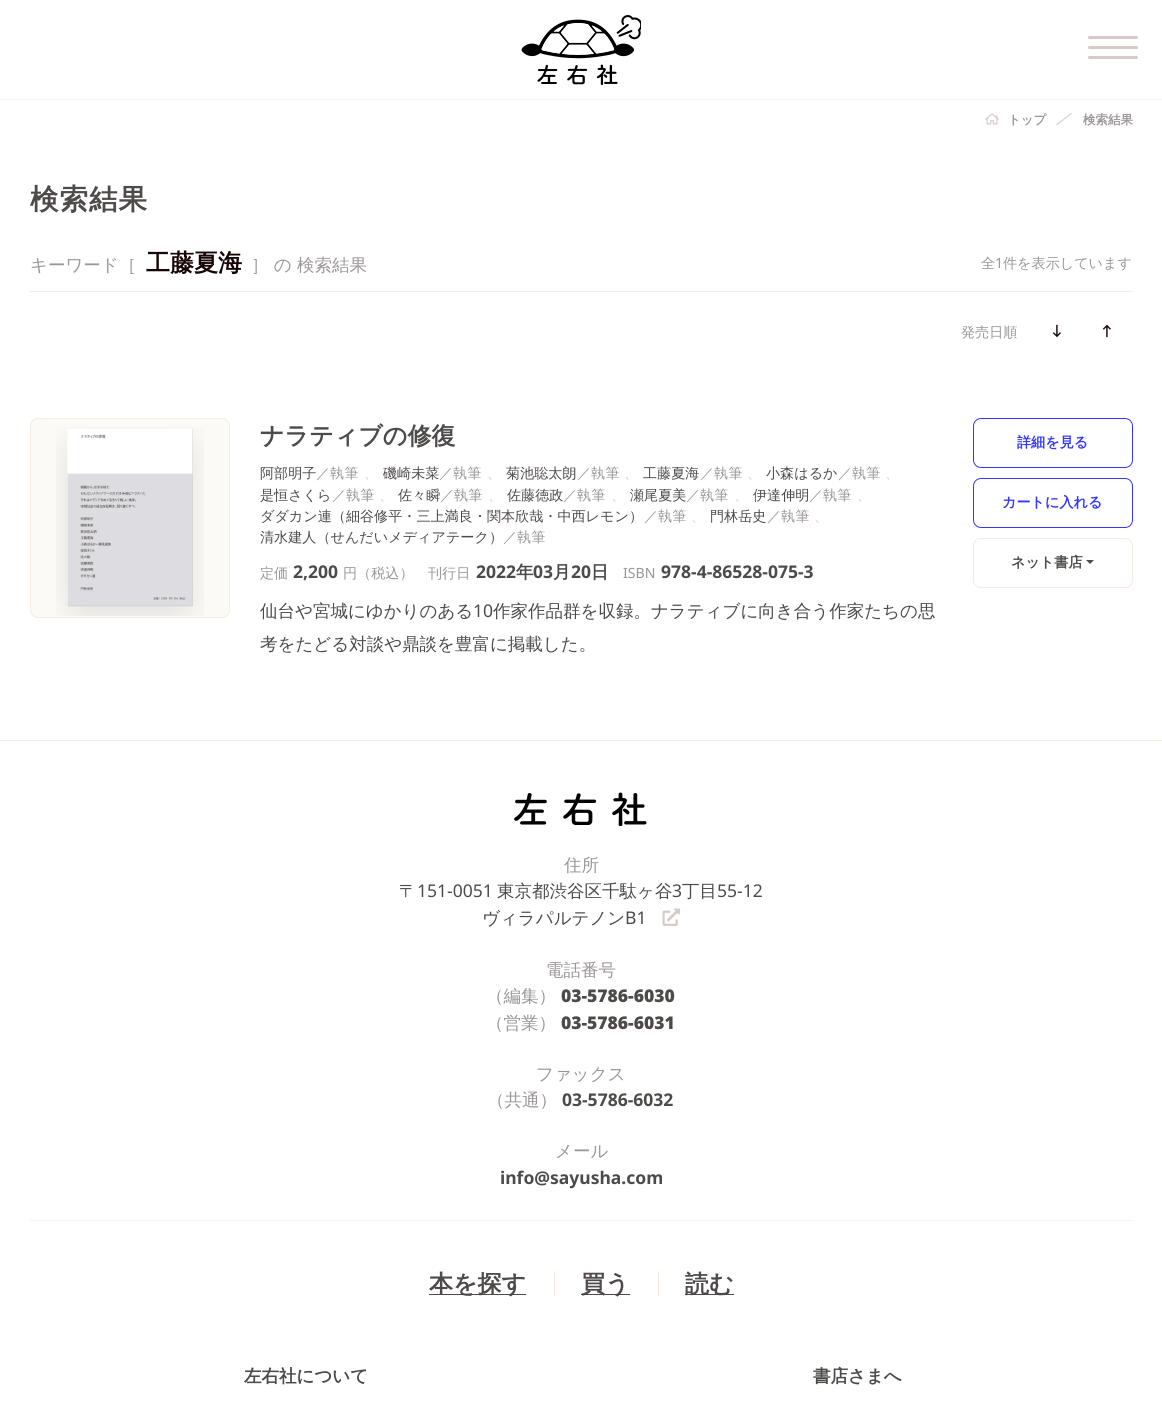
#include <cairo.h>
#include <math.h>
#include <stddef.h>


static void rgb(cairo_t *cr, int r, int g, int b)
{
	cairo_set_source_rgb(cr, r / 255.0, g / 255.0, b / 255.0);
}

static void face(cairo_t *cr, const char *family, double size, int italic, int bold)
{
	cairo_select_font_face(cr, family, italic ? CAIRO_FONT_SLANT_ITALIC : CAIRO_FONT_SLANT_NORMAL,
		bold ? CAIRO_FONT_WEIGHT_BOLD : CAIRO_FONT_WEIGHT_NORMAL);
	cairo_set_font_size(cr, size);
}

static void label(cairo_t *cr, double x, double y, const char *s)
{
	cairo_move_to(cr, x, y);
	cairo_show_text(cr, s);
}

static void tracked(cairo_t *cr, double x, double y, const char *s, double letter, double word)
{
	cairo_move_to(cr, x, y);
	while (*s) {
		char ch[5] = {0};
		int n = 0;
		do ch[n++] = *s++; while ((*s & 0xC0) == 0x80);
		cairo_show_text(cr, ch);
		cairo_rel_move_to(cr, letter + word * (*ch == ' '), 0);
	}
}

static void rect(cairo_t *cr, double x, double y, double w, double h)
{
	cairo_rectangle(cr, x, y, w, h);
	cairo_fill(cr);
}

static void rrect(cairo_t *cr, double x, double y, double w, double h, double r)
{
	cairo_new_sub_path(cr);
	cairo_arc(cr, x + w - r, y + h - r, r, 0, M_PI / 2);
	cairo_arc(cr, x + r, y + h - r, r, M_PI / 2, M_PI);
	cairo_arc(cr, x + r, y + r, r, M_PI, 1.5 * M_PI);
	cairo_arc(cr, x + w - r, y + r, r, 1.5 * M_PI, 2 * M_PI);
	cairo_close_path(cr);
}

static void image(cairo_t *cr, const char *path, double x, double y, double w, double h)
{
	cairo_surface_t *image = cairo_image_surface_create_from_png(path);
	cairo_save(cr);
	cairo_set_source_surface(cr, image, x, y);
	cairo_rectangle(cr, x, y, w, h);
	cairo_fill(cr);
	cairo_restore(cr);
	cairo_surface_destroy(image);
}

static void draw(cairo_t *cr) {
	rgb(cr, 255, 255, 255);
	cairo_paint(cr);
	rgb(cr, 250, 242, 239);
	rect(cr, 0, 99, 1162, 1);
	image(cr, "image0.png", 521, 15, 120, 70);
	rgb(cr, 214, 203, 199);
	rrect(cr, 1088, 46, 50, 3, 1.5);
	cairo_fill(cr);
	rrect(cr, 1088, 36, 50, 3, 1.5);
	cairo_fill(cr);
	rrect(cr, 1088, 56, 50, 3, 1.5);
	cairo_fill(cr);
	image(cr, "image1.png", 985, 113, 14, 12);
	face(cr, "WenQuanYi Zen Hei", 12.5, 0, 1);
	rgb(cr, 156, 150, 150);
	label(cr, 1008, 124, "トップ");
	image(cr, "image2.png", 1056, 113, 16, 13);
	label(cr, 1083, 124, "検索結果");
	face(cr, "WenQuanYi Zen Hei", 28.5, 0, 1);
	rgb(cr, 79, 74, 74);
	tracked(cr, 30, 209, "検索結果", 1, 0);
	face(cr, "WenQuanYi Zen Hei Medium", 17.5, 0, 0);
	rgb(cr, 156, 150, 150);
	label(cr, 30, 271, "キーワード［");
	face(cr, "WenQuanYi Zen Hei", 24, 0, 1);
	rgb(cr, 24, 6, 6);
	label(cr, 146, 271, "工藤夏海");
	face(cr, "WenQuanYi Zen Hei Medium", 17.5, 0, 0);
	rgb(cr, 156, 150, 150);
	label(cr, 251, 271, "］ の 検索結果");
	face(cr, "WenQuanYi Zen Hei Medium", 14.1, 0, 0);
	label(cr, 981, 268, "全");
	face(cr, "Noto Sans", 14.1, 0, 0);
	label(cr, 995, 268, "1");
	face(cr, "WenQuanYi Zen Hei Medium", 14.1, 0, 0);
	label(cr, 1003, 268, "件を表示しています");
	rgb(cr, 247, 233, 227);
	rect(cr, 30, 291, 1103, 1);
	rgb(cr, 156, 150, 150);
	label(cr, 961, 337, "発売日順");
	image(cr, "image3.png", 1053, 324, 8, 14);
	image(cr, "image4.png", 1103, 324, 8, 14);
	rgb(cr, 252, 250, 247);
	rrect(cr, 30.5, 418.5, 199, 199, 7.5);
	cairo_fill_preserve(cr);
	rgb(cr, 247, 233, 227);
	cairo_set_line_width(cr, 1);
	cairo_stroke(cr);
	image(cr, "image5.png", 56, 427, 148, 189);
	face(cr, "WenQuanYi Zen Hei", 24, 0, 1);
	rgb(cr, 79, 74, 74);
	label(cr, 260, 444, "ナラティブの修復");
	face(cr, "WenQuanYi Zen Hei Medium", 14.1, 0, 0);
	label(cr, 260, 478, "阿部明子");
	rgb(cr, 156, 150, 150);
	label(cr, 316, 478, "／執筆");
	rgb(cr, 214, 203, 199);
	label(cr, 364, 478, "、");
	rgb(cr, 79, 74, 74);
	label(cr, 383, 478, "磯崎未菜");
	rgb(cr, 156, 150, 150);
	label(cr, 439, 478, "／執筆");
	rgb(cr, 214, 203, 199);
	label(cr, 487, 478, "、");
	rgb(cr, 79, 74, 74);
	label(cr, 506, 478, "菊池聡太朗");
	rgb(cr, 156, 150, 150);
	label(cr, 577, 478, "／執筆");
	rgb(cr, 214, 203, 199);
	label(cr, 624, 478, "、");
	rgb(cr, 79, 74, 74);
	label(cr, 643, 478, "工藤夏海");
	rgb(cr, 156, 150, 150);
	label(cr, 700, 478, "／執筆");
	rgb(cr, 214, 203, 199);
	label(cr, 747, 478, "、");
	rgb(cr, 79, 74, 74);
	label(cr, 766, 478, "小森はるか");
	rgb(cr, 156, 150, 150);
	label(cr, 838, 478, "／執筆");
	rgb(cr, 214, 203, 199);
	label(cr, 885, 478, "、");
	rgb(cr, 79, 74, 74);
	label(cr, 260, 500, "是恒さくら");
	rgb(cr, 156, 150, 150);
	label(cr, 332, 500, "／執筆");
	rgb(cr, 214, 203, 199);
	label(cr, 379, 500, "、");
	rgb(cr, 79, 74, 74);
	label(cr, 398, 500, "佐々瞬");
	rgb(cr, 156, 150, 150);
	label(cr, 440, 500, "／執筆");
	rgb(cr, 214, 203, 199);
	label(cr, 488, 500, "、");
	rgb(cr, 79, 74, 74);
	label(cr, 507, 500, "佐藤徳政");
	rgb(cr, 156, 150, 150);
	label(cr, 563, 500, "／執筆");
	rgb(cr, 214, 203, 199);
	label(cr, 611, 500, "、");
	rgb(cr, 79, 74, 74);
	label(cr, 630, 500, "瀬尾夏美");
	rgb(cr, 156, 150, 150);
	label(cr, 686, 500, "／執筆");
	rgb(cr, 214, 203, 199);
	label(cr, 734, 500, "、");
	rgb(cr, 79, 74, 74);
	label(cr, 753, 500, "伊達伸明");
	rgb(cr, 156, 150, 150);
	label(cr, 809, 500, "／執筆");
	rgb(cr, 214, 203, 199);
	label(cr, 857, 500, "、");
	rgb(cr, 79, 74, 74);
	label(cr, 260, 521, "ダダカン連（細谷修平・三上満良・関本欣哉・中西レモン）");
	rgb(cr, 156, 150, 150);
	label(cr, 644, 521, "／執筆");
	rgb(cr, 214, 203, 199);
	label(cr, 691, 521, "、");
	rgb(cr, 79, 74, 74);
	label(cr, 710, 521, "門林岳史");
	rgb(cr, 156, 150, 150);
	label(cr, 767, 521, "／執筆");
	rgb(cr, 214, 203, 199);
	label(cr, 814, 521, "、");
	rgb(cr, 79, 74, 74);
	label(cr, 260, 542, "清水建人（せんだいメディアテーク）");
	rgb(cr, 156, 150, 150);
	label(cr, 503, 542, "／執筆");
	label(cr, 260, 578, "定価");
	face(cr, "Noto Sans", 17.5, 0, 1);
	rgb(cr, 79, 74, 74);
	label(cr, 293, 578, "2,200");
	face(cr, "WenQuanYi Zen Hei Medium", 14.1, 0, 0);
	rgb(cr, 156, 150, 150);
	label(cr, 343, 578, "円（税込）");
	label(cr, 428, 578, "刊行日");
	face(cr, "Noto Sans", 17.5, 0, 1);
	rgb(cr, 79, 74, 74);
	label(cr, 476, 578, "2022");
	face(cr, "WenQuanYi Zen Hei", 17.5, 0, 1);
	label(cr, 516, 578, "年");
	face(cr, "Noto Sans", 17.5, 0, 1);
	label(cr, 533, 578, "03");
	face(cr, "WenQuanYi Zen Hei", 17.5, 0, 1);
	label(cr, 553, 578, "月");
	face(cr, "Noto Sans", 17.5, 0, 1);
	label(cr, 571, 578, "20");
	face(cr, "WenQuanYi Zen Hei", 17.5, 0, 1);
	label(cr, 591, 578, "日");
	face(cr, "Noto Sans", 14.1, 0, 0);
	rgb(cr, 156, 150, 150);
	label(cr, 623, 578, "ISBN");
	face(cr, "Noto Sans", 17.5, 0, 1);
	rgb(cr, 79, 74, 74);
	label(cr, 661, 578, "978-4-86528-075-3");
	face(cr, "WenQuanYi Zen Hei Medium", 17.5, 0, 0);
	label(cr, 260, 617, "仙台や宮城にゆかりのある");
	face(cr, "Noto Sans", 17.5, 0, 0);
	label(cr, 473, 617, "10");
	face(cr, "WenQuanYi Zen Hei Medium", 17.5, 0, 0);
	label(cr, 493, 617, "作家作品群を収録。ナラティブに向き合う作家たちの思");
	label(cr, 260, 650, "考をたどる対談や鼎談を豊富に掲載した。");
	rrect(cr, 973.5, 418.5, 159, 49, 7.5);
	rgb(cr, 52, 55, 255);
	cairo_stroke(cr);
	face(cr, "WenQuanYi Zen Hei", 14.1, 0, 1);
	label(cr, 1017, 447, "詳細を見る");
	rrect(cr, 973.5, 478.5, 159, 49, 7.5);
	cairo_stroke(cr);
	label(cr, 1002, 507, "カートに入れる");
	rrect(cr, 973.5, 538.5, 159, 49, 7.5);
	rgb(cr, 247, 233, 227);
	cairo_stroke(cr);
	rgb(cr, 79, 74, 74);
	label(cr, 1011, 567, "ネット書店");
	cairo_new_path(cr);
	cairo_move_to(cr, 1086, 560);
	cairo_line_to(cr, 1094, 560);
	cairo_line_to(cr, 1090, 564);
	cairo_close_path(cr);
	cairo_fill(cr);
	rgb(cr, 247, 233, 227);
	rect(cr, 0, 740, 1162, 1);
	image(cr, "image6.png", 514, 792, 133, 34);
	rgb(cr, 250, 242, 239);
	rect(cr, 30, 1220, 1103, 1);
	face(cr, "WenQuanYi Zen Hei Medium", 17.5, 0, 0);
	rgb(cr, 156, 150, 150);
	label(cr, 564, 871, "住所");
	rgb(cr, 79, 74, 74);
	label(cr, 399, 897, "〒");
	face(cr, "Noto Sans", 17.5, 0, 0);
	label(cr, 417, 897, "151-0051");
	face(cr, "WenQuanYi Zen Hei Medium", 17.5, 0, 0);
	label(cr, 497, 897, "東京都渋谷区千駄ヶ谷");
	face(cr, "Noto Sans", 17.5, 0, 0);
	label(cr, 672, 897, "3");
	face(cr, "WenQuanYi Zen Hei Medium", 17.5, 0, 0);
	label(cr, 682, 897, "丁目");
	face(cr, "Noto Sans", 17.5, 0, 0);
	label(cr, 717, 897, "55-12");
	face(cr, "WenQuanYi Zen Hei Medium", 17.5, 0, 0);
	label(cr, 482, 924, "ヴィラパルテノン");
	face(cr, "Noto Sans", 17.5, 0, 0);
	label(cr, 625, 924, "B1");
	image(cr, "image7.png", 662, 908, 18, 18);
	face(cr, "WenQuanYi Zen Hei Medium", 17.5, 0, 0);
	rgb(cr, 156, 150, 150);
	label(cr, 546, 976, "電話番号");
	label(cr, 486, 1002, "（編集）");
	face(cr, "Noto Sans Black", 17.5, 0, 0);
	rgb(cr, 79, 74, 74);
	label(cr, 561, 1002, "03-5786-6030");
	face(cr, "WenQuanYi Zen Hei Medium", 17.5, 0, 0);
	rgb(cr, 156, 150, 150);
	label(cr, 486, 1029, "（営業）");
	face(cr, "Noto Sans Black", 17.5, 0, 0);
	rgb(cr, 79, 74, 74);
	label(cr, 561, 1029, "03-5786-6031");
	face(cr, "WenQuanYi Zen Hei Medium", 17.5, 0, 0);
	rgb(cr, 156, 150, 150);
	label(cr, 536, 1080, "ファックス");
	label(cr, 487, 1106, "（共通）");
	face(cr, "Noto Sans", 17.5, 0, 1);
	rgb(cr, 79, 74, 74);
	label(cr, 562, 1106, "03-5786-6032");
	face(cr, "WenQuanYi Zen Hei Medium", 17.5, 0, 0);
	rgb(cr, 156, 150, 150);
	label(cr, 555, 1157, "メール");
	face(cr, "Noto Sans", 17.5, 0, 1);
	rgb(cr, 79, 74, 74);
	label(cr, 500, 1184, "info@sayusha.com");
	rect(cr, 429, 1294, 97, 1);
	face(cr, "WenQuanYi Zen Hei", 24, 0, 1);
	label(cr, 429, 1292, "本を探す");
	rgb(cr, 247, 233, 227);
	rect(cr, 554, 1271, 1, 25);
	rgb(cr, 79, 74, 74);
	rect(cr, 581, 1294, 49, 1);
	label(cr, 581, 1292, "買う");
	rgb(cr, 247, 233, 227);
	rect(cr, 658, 1271, 1, 25);
	rgb(cr, 79, 74, 74);
	rect(cr, 685, 1294, 49, 1);
	label(cr, 685, 1292, "読む");
	face(cr, "WenQuanYi Zen Hei", 17.5, 0, 1);
	label(cr, 244, 1382, "左右社について");
	label(cr, 813, 1382, "書店さまへ");
}

int main(void) {
	cairo_surface_t *surface = cairo_image_surface_create(CAIRO_FORMAT_RGB24, 1162, 1426);
	cairo_t *cr = cairo_create(surface);
	cairo_font_options_t *options = cairo_font_options_create();
	cairo_font_options_set_hint_metrics(options, CAIRO_HINT_METRICS_OFF);
	cairo_font_options_set_hint_style(options, CAIRO_HINT_STYLE_NONE);
	cairo_set_font_options(cr, options);
	cairo_set_miter_limit(cr, 4);
	draw(cr);
	cairo_surface_write_to_png(surface, "render.png");
	cairo_font_options_destroy(options);
	cairo_destroy(cr);
	cairo_surface_destroy(surface);
	return 0;
}
